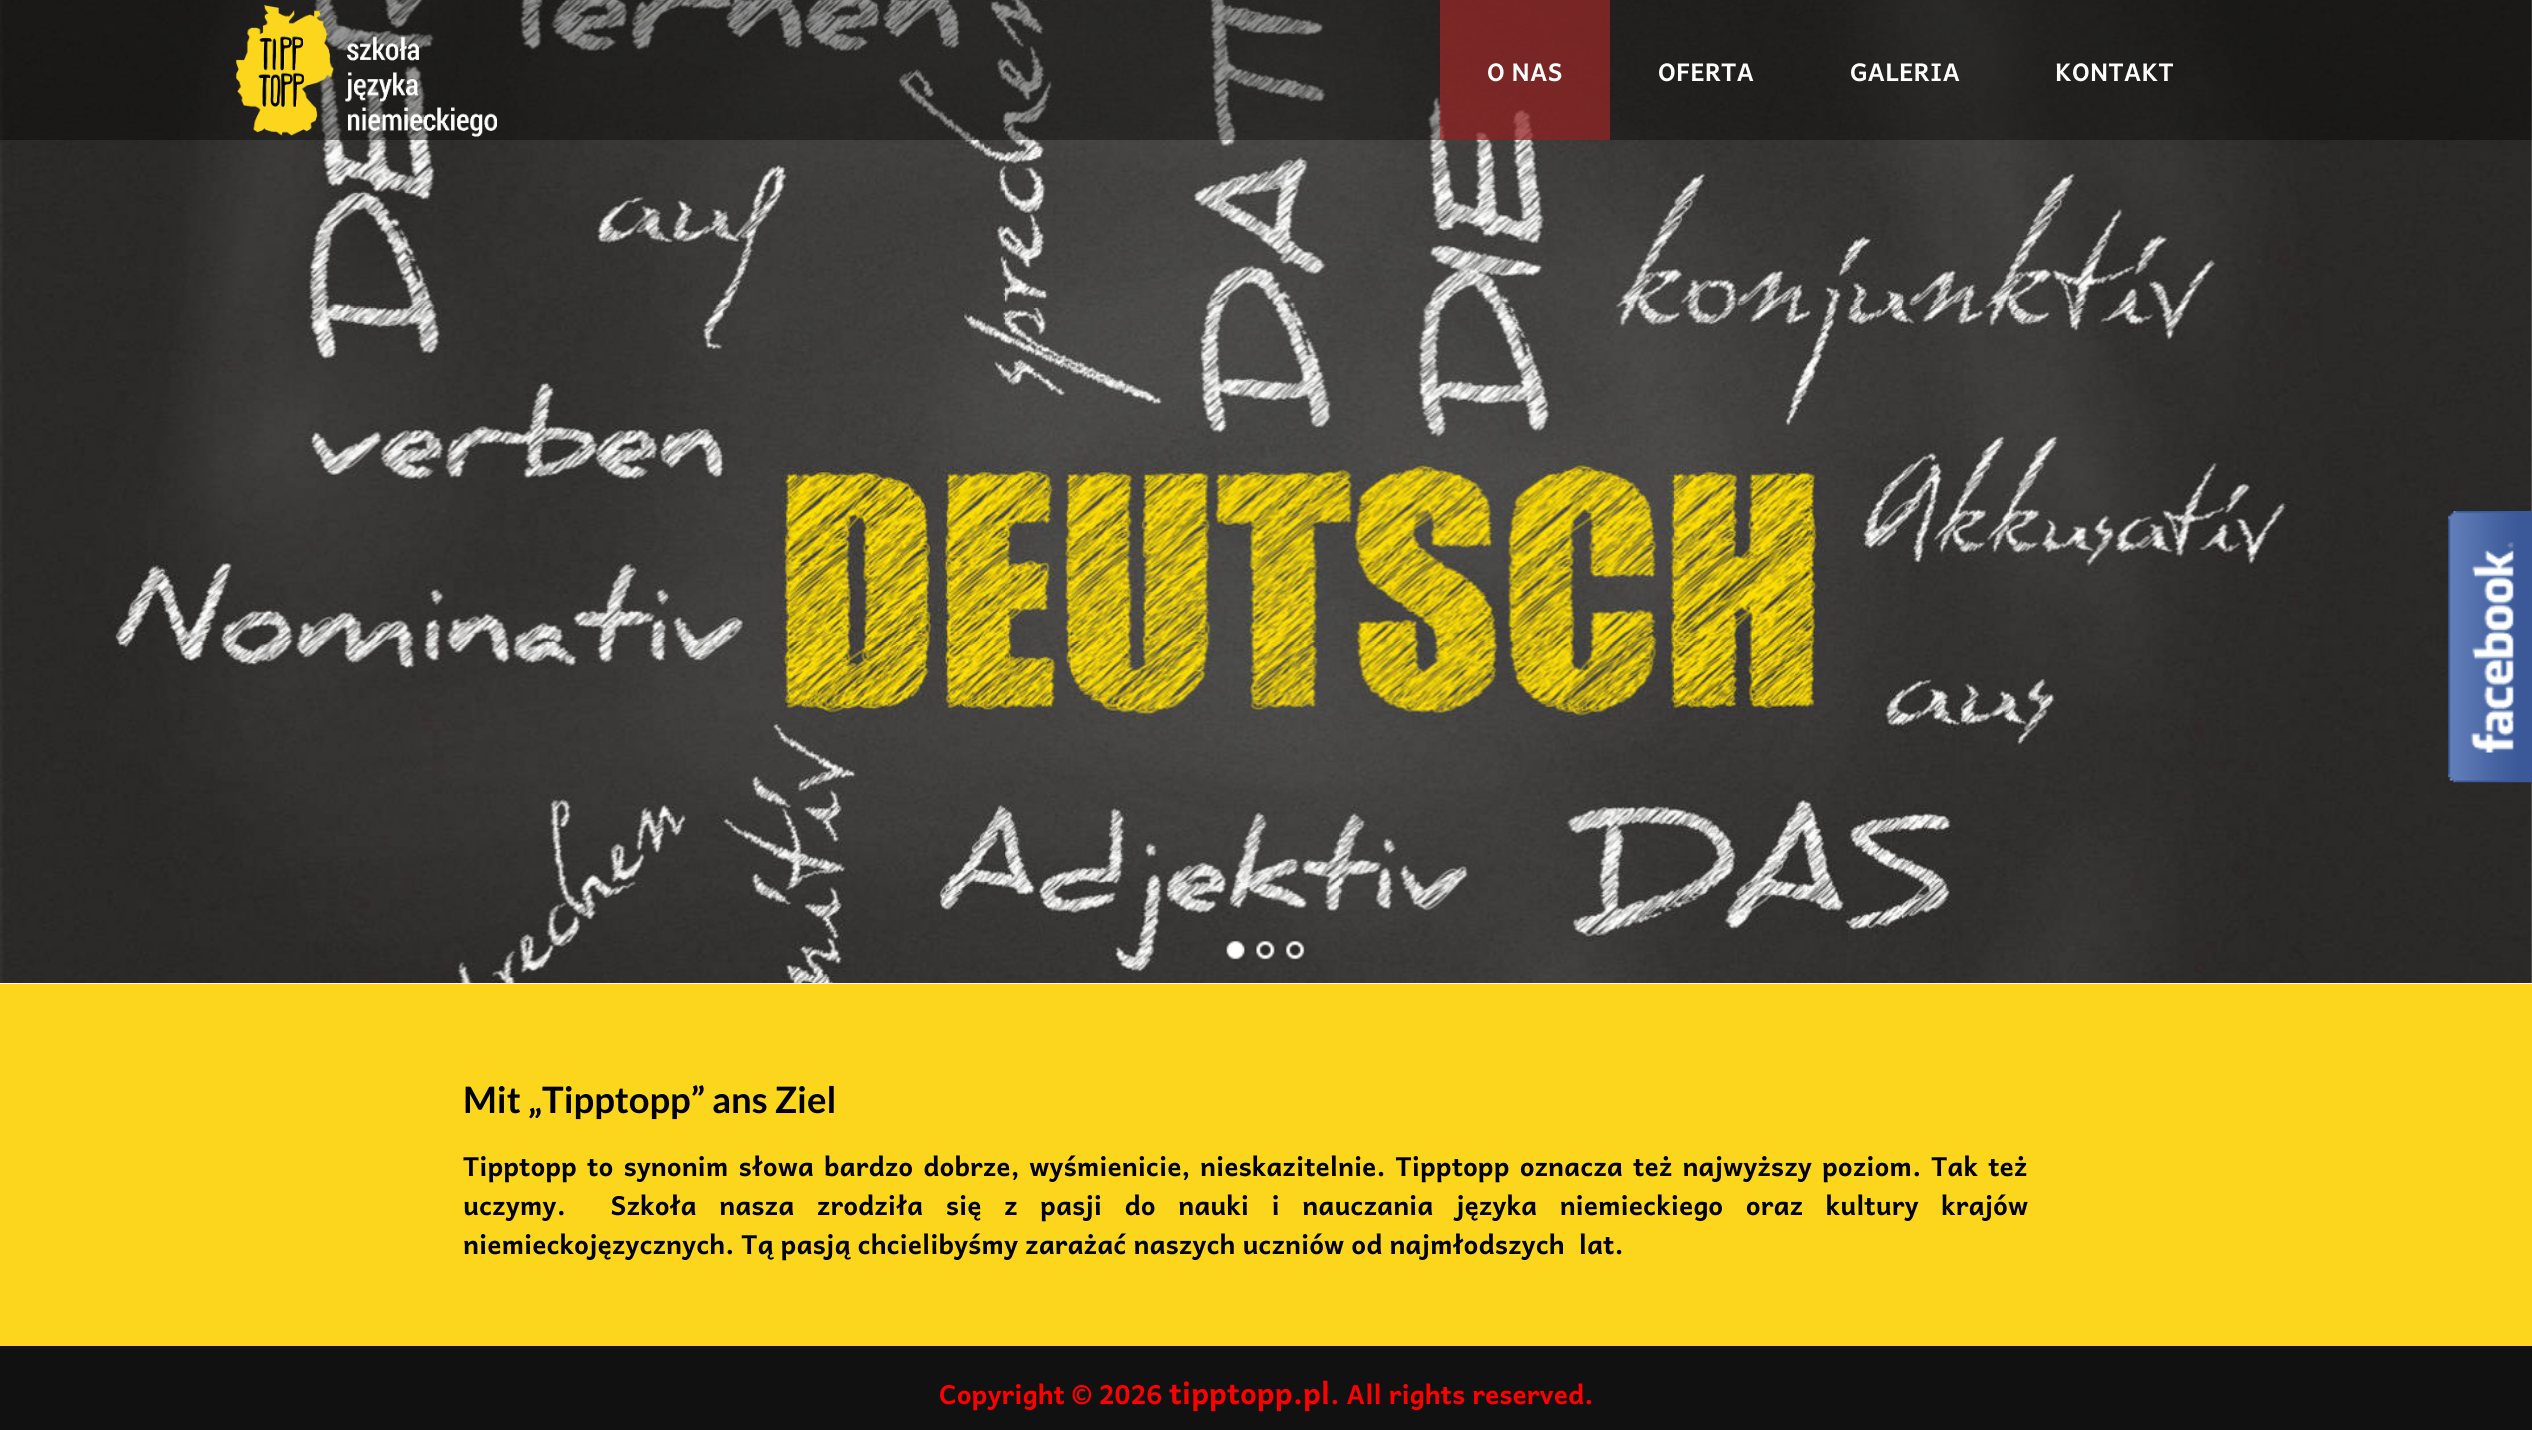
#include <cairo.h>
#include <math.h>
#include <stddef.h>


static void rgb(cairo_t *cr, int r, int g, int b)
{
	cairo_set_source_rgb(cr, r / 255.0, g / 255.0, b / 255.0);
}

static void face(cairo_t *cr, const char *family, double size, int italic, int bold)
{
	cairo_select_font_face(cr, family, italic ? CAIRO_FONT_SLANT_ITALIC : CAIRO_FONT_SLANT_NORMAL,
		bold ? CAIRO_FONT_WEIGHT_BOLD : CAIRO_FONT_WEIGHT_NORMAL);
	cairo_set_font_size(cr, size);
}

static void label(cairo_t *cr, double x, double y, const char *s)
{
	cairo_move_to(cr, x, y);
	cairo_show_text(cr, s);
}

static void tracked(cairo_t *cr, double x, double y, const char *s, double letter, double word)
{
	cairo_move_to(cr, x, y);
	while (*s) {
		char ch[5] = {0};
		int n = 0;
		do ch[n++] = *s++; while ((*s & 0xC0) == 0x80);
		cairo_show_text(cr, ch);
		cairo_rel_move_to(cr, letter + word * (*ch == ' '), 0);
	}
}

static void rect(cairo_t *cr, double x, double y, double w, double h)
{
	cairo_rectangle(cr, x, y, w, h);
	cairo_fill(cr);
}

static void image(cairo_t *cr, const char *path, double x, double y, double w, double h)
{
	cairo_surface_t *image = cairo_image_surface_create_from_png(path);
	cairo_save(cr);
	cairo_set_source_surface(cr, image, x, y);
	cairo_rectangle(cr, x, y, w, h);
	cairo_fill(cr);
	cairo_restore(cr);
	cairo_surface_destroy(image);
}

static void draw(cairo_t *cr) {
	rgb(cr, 255, 255, 255);
	cairo_paint(cr);
	image(cr, "image0.png", 0, 0, 2532, 983);
	image(cr, "image1.png", 1225, 939, 22, 22);
	image(cr, "image2.png", 1254, 939, 22, 22);
	image(cr, "image3.png", 1284, 939, 22, 22);
	cairo_set_source_rgba(cr, 0, 0, 0, 0.4);
	rect(cr, 0, 0, 2532, 140);
	image(cr, "image4.png", 236, 5, 261, 132);
	cairo_set_source_rgba(cr, 0.741, 0.165, 0.165, 0.56);
	rect(cr, 1440, 0, 170, 140);
	face(cr, "Andika", 24.5, 0, 1);
	rgb(cr, 255, 255, 255);
	label(cr, 1487, 81, "O NAS");
	label(cr, 1658, 81, "OFERTA");
	label(cr, 1850, 81, "GALERIA");
	label(cr, 2055, 81, "KONTAKT");
	rgb(cr, 251, 214, 29);
	rect(cr, 0, 984, 2532, 362);
	face(cr, "Lato", 36.4, 0, 1);
	rgb(cr, 0, 0, 0);
	label(cr, 463, 1113, "Mit „Tipptopp” ans Ziel");
	face(cr, "Andika", 26.25, 0, 1);
	tracked(cr, 463, 1176, "Tipptopp to synonim słowa bardzo dobrze, wyśmienicie, nieskazitelnie. Tipptopp oznacza też najwyższy poziom. Tak też", 0, 3.1);
	tracked(cr, 463, 1215, "uczymy.  Szkoła nasza zrodziła się z pasji do nauki i nauczania języka niemieckiego oraz kultury krajów", 0, 15.5);
	label(cr, 463, 1254, "niemieckojęzycznych. Tą pasją chcielibyśmy zarażać naszych uczniów od najmłodszych  lat.");
	rgb(cr, 17, 17, 17);
	rect(cr, 0, 1346, 2532, 84);
	image(cr, "image5.png", 2448, 511, 84, 272);
	rgb(cr, 255, 0, 0);
	label(cr, 939, 1404, "Copyright © 2026");
	face(cr, "Andika", 29.75, 0, 1);
	label(cr, 1169, 1404, "tipptopp.pl");
	face(cr, "Andika", 26.25, 0, 1);
	label(cr, 1330, 1404, ". All rights reserved.");
}

int main(void) {
	cairo_surface_t *surface = cairo_image_surface_create(CAIRO_FORMAT_RGB24, 2532, 1430);
	cairo_t *cr = cairo_create(surface);
	cairo_font_options_t *options = cairo_font_options_create();
	cairo_font_options_set_hint_metrics(options, CAIRO_HINT_METRICS_OFF);
	cairo_font_options_set_hint_style(options, CAIRO_HINT_STYLE_NONE);
	cairo_set_font_options(cr, options);
	cairo_set_miter_limit(cr, 4);
	draw(cr);
	cairo_surface_write_to_png(surface, "render.png");
	cairo_font_options_destroy(options);
	cairo_destroy(cr);
	cairo_surface_destroy(surface);
	return 0;
}
